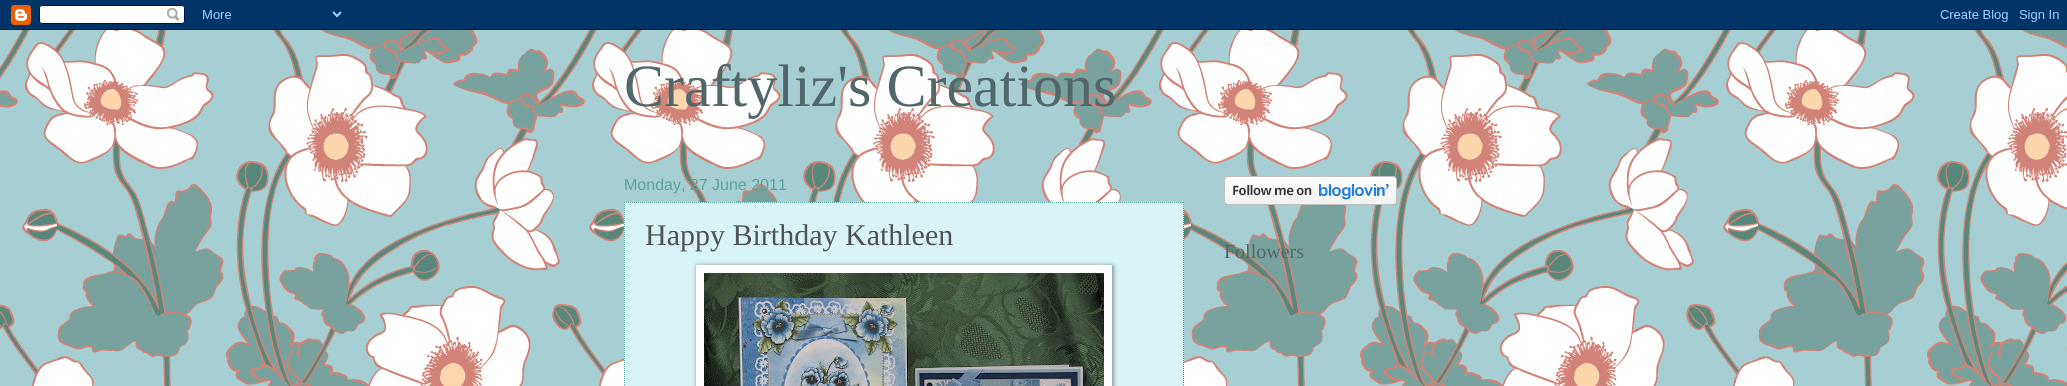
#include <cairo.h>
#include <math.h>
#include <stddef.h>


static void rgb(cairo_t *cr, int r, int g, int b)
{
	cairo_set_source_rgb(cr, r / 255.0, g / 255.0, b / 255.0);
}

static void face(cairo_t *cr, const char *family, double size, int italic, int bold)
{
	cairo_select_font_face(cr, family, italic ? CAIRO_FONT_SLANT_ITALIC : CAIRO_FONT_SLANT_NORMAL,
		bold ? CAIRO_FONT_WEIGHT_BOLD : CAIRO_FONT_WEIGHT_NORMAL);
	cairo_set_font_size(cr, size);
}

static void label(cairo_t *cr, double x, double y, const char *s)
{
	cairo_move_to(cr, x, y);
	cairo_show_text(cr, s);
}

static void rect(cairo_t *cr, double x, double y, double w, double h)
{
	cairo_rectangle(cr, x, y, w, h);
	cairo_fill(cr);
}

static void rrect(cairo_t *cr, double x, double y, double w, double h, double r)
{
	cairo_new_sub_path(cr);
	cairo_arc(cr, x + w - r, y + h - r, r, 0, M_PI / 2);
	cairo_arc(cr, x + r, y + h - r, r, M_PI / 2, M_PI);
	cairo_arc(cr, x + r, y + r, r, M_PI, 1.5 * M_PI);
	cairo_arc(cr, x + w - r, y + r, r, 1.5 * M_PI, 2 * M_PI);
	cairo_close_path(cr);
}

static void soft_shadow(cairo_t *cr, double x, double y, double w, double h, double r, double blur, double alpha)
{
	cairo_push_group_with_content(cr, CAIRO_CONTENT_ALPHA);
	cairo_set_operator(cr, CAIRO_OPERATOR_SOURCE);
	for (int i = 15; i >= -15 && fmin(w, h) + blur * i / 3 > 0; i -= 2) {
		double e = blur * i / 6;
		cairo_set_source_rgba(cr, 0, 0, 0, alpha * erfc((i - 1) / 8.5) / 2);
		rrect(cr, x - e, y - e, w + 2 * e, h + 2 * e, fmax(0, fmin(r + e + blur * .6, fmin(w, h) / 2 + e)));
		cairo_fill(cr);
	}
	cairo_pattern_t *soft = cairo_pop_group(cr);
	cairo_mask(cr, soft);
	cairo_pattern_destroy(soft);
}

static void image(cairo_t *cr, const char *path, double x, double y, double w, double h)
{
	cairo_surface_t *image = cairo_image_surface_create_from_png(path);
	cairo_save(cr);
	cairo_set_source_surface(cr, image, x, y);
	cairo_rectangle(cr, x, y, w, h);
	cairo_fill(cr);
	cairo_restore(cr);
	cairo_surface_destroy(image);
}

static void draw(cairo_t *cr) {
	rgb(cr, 255, 255, 255);
	cairo_paint(cr);
	image(cr, "image0.png", 0, 30, 2067, 356);
	image(cr, "image1.png", 0, 0, 2067, 30);
	face(cr, "Liberation Serif", 60, 0, 0);
	rgb(cr, 83, 103, 106);
	label(cr, 624, 106, "Craftyliz's Creations");
	face(cr, "Liberation Sans", 16, 0, 0);
	rgb(cr, 91, 164, 156);
	label(cr, 624, 190, "Monday, 27 June 2011");
	rgb(cr, 217, 244, 246);
	rect(cr, 624, 202, 560, 184);
	cairo_new_path(cr);
	cairo_move_to(cr, 624, 202.5);
	cairo_line_to(cr, 1184, 202.5);
	rgb(cr, 91, 164, 156);
	cairo_set_line_width(cr, 1);
	cairo_set_dash(cr, (double[]){1, 1}, 2, 0);
	cairo_stroke(cr);
	cairo_new_path(cr);
	cairo_move_to(cr, 1183.5, 202);
	cairo_line_to(cr, 1183.5, 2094);
	cairo_stroke(cr);
	cairo_new_path(cr);
	cairo_move_to(cr, 624.5, 202);
	cairo_line_to(cr, 624.5, 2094);
	cairo_stroke(cr);
	face(cr, "Liberation Serif", 30, 0, 0);
	rgb(cr, 82, 82, 82);
	label(cr, 645, 245, "Happy Birthday Kathleen");
	rgb(cr, 0, 0, 0);
	soft_shadow(cr, 697, 266, 416, 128, 0, 2.5, 0.5);
	rgb(cr, 255, 255, 255);
	rect(cr, 696, 265, 416, 121);
	image(cr, "image2.png", 704, 273, 400, 113);
	image(cr, "image3.png", 1224, 176, 173, 29);
	face(cr, "Liberation Serif", 20, 0, 0);
	rgb(cr, 83, 103, 106);
	label(cr, 1224, 258, "Followers");
}

int main(void) {
	cairo_surface_t *surface = cairo_image_surface_create(CAIRO_FORMAT_RGB24, 2067, 386);
	cairo_t *cr = cairo_create(surface);
	cairo_font_options_t *options = cairo_font_options_create();
	cairo_font_options_set_hint_metrics(options, CAIRO_HINT_METRICS_OFF);
	cairo_font_options_set_hint_style(options, CAIRO_HINT_STYLE_NONE);
	cairo_set_font_options(cr, options);
	cairo_set_miter_limit(cr, 4);
	draw(cr);
	cairo_surface_write_to_png(surface, "render.png");
	cairo_font_options_destroy(options);
	cairo_destroy(cr);
	cairo_surface_destroy(surface);
	return 0;
}
